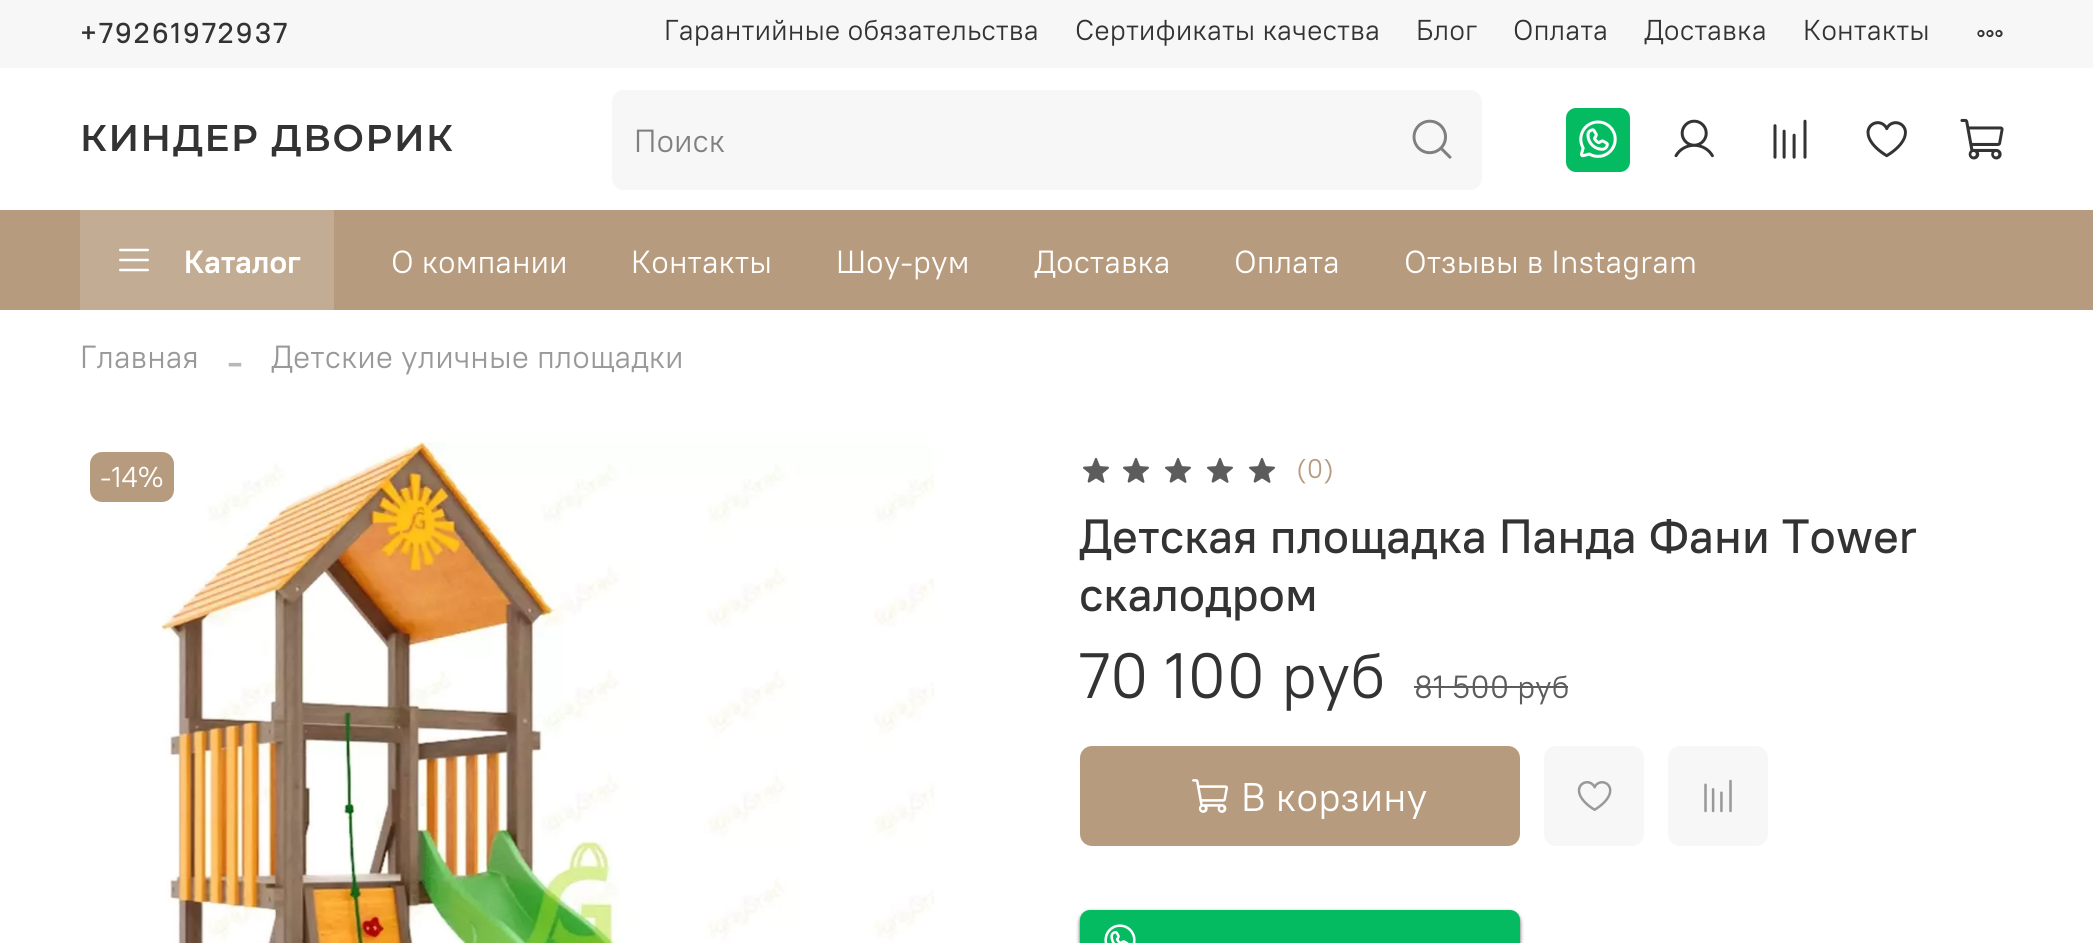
#include <cairo.h>
#include <math.h>
#include <stddef.h>


static void rgb(cairo_t *cr, int r, int g, int b)
{
	cairo_set_source_rgb(cr, r / 255.0, g / 255.0, b / 255.0);
}

static void face(cairo_t *cr, const char *family, double size, int italic, int bold)
{
	cairo_select_font_face(cr, family, italic ? CAIRO_FONT_SLANT_ITALIC : CAIRO_FONT_SLANT_NORMAL,
		bold ? CAIRO_FONT_WEIGHT_BOLD : CAIRO_FONT_WEIGHT_NORMAL);
	cairo_set_font_size(cr, size);
}

static void label(cairo_t *cr, double x, double y, const char *s)
{
	cairo_move_to(cr, x, y);
	cairo_show_text(cr, s);
}

static void tracked(cairo_t *cr, double x, double y, const char *s, double letter, double word)
{
	cairo_move_to(cr, x, y);
	while (*s) {
		char ch[5] = {0};
		int n = 0;
		do ch[n++] = *s++; while ((*s & 0xC0) == 0x80);
		cairo_show_text(cr, ch);
		cairo_rel_move_to(cr, letter + word * (*ch == ' '), 0);
	}
}

static void rect(cairo_t *cr, double x, double y, double w, double h)
{
	cairo_rectangle(cr, x, y, w, h);
	cairo_fill(cr);
}

static void rrect(cairo_t *cr, double x, double y, double w, double h, double r)
{
	cairo_new_sub_path(cr);
	cairo_arc(cr, x + w - r, y + h - r, r, 0, M_PI / 2);
	cairo_arc(cr, x + r, y + h - r, r, M_PI / 2, M_PI);
	cairo_arc(cr, x + r, y + r, r, M_PI, 1.5 * M_PI);
	cairo_arc(cr, x + w - r, y + r, r, 1.5 * M_PI, 2 * M_PI);
	cairo_close_path(cr);
}

static void soft_shadow(cairo_t *cr, double x, double y, double w, double h, double r, double blur, double alpha)
{
	cairo_push_group_with_content(cr, CAIRO_CONTENT_ALPHA);
	cairo_set_operator(cr, CAIRO_OPERATOR_SOURCE);
	for (int i = 15; i >= -15 && fmin(w, h) + blur * i / 3 > 0; i -= 2) {
		double e = blur * i / 6;
		cairo_set_source_rgba(cr, 0, 0, 0, alpha * erfc((i - 1) / 8.5) / 2);
		rrect(cr, x - e, y - e, w + 2 * e, h + 2 * e, fmax(0, fmin(r + e + blur * .6, fmin(w, h) / 2 + e)));
		cairo_fill(cr);
	}
	cairo_pattern_t *soft = cairo_pop_group(cr);
	cairo_mask(cr, soft);
	cairo_pattern_destroy(soft);
}

static void image(cairo_t *cr, const char *path, double x, double y, double w, double h)
{
	cairo_surface_t *image = cairo_image_surface_create_from_png(path);
	cairo_save(cr);
	cairo_set_source_surface(cr, image, x, y);
	cairo_rectangle(cr, x, y, w, h);
	cairo_fill(cr);
	cairo_restore(cr);
	cairo_surface_destroy(image);
}

static void draw(cairo_t *cr) {
	rgb(cr, 255, 255, 255);
	cairo_paint(cr);
	rgb(cr, 247, 247, 247);
	rect(cr, 0, 0, 2093, 68);
	face(cr, "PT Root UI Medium", 28.75, 0, 0);
	rgb(cr, 51, 51, 51);
	tracked(cr, 80, 43, "+79261972937", 2, 0);
	face(cr, "PT Root UI", 28.75, 0, 0);
	label(cr, 664, 40, "Гарантийные обязательства");
	label(cr, 1075, 40, "Сертификаты качества");
	label(cr, 1416, 40, "Блог");
	label(cr, 1513, 40, "Оплата");
	label(cr, 1644, 40, "Доставка");
	label(cr, 1803, 40, "Контакты");
	image(cr, "image0.png", 1977, 29, 26, 9);
	image(cr, "image1.png", 83, 124, 370, 33);
	rgb(cr, 247, 247, 247);
	cairo_new_path(cr);
	cairo_move_to(cr, 624, 90);
	cairo_line_to(cr, 1382, 90);
	cairo_line_to(cr, 1382, 190);
	cairo_line_to(cr, 624, 190);
	cairo_curve_to(cr, 617.5, 190, 612, 184.5, 612, 178);
	cairo_line_to(cr, 612, 102);
	cairo_curve_to(cr, 612, 95.5, 617.5, 90, 624, 90);
	cairo_close_path(cr);
	cairo_fill(cr);
	cairo_set_fill_rule(cr, CAIRO_FILL_RULE_EVEN_ODD);
	cairo_new_path(cr);
	cairo_move_to(cr, 624, 90);
	cairo_line_to(cr, 1382, 90);
	cairo_line_to(cr, 1382, 190);
	cairo_line_to(cr, 624, 190);
	cairo_curve_to(cr, 617, 190, 612, 185, 612, 178);
	cairo_line_to(cr, 612, 102);
	cairo_curve_to(cr, 612, 95, 617, 90, 624, 90);
	cairo_close_path(cr);
	cairo_move_to(cr, 624, 92);
	cairo_line_to(cr, 1382, 92);
	cairo_line_to(cr, 1382, 188);
	cairo_line_to(cr, 624, 188);
	cairo_curve_to(cr, 618, 188, 614, 184, 614, 178);
	cairo_line_to(cr, 614, 102);
	cairo_curve_to(cr, 614, 96, 618, 92, 624, 92);
	cairo_close_path(cr);
	cairo_fill(cr);
	face(cr, "PT Root UI", 32, 0, 0);
	rgb(cr, 128, 128, 128);
	label(cr, 634, 152, "Поиск");
	rgb(cr, 247, 247, 247);
	cairo_new_path(cr);
	cairo_move_to(cr, 1382, 90);
	cairo_line_to(cr, 1470, 90);
	cairo_curve_to(cr, 1476.5, 90, 1482, 95.5, 1482, 102);
	cairo_line_to(cr, 1482, 178);
	cairo_curve_to(cr, 1482, 184.5, 1476.5, 190, 1470, 190);
	cairo_line_to(cr, 1382, 190);
	cairo_close_path(cr);
	cairo_fill(cr);
	image(cr, "image2.png", 1412, 119, 40, 40);
	rgb(cr, 5, 187, 98);
	rrect(cr, 1566, 108, 64, 64, 10);
	cairo_fill(cr);
	image(cr, "image3.png", 1579, 120, 38, 38);
	image(cr, "image4.png", 1674, 119, 40, 39);
	image(cr, "image5.png", 1773, 119, 34, 40);
	image(cr, "image6.png", 1866, 121, 41, 37);
	image(cr, "image7.png", 1960, 118, 44, 42);
	rgb(cr, 183, 155, 126);
	rect(cr, 0, 210, 2093, 100);
	rgb(cr, 195, 172, 148);
	rect(cr, 80, 210, 254, 100);
	image(cr, "image8.png", 119, 248, 30, 24);
	face(cr, "PT Root UI", 32, 0, 1);
	rgb(cr, 255, 255, 255);
	label(cr, 184, 273, "Каталог");
	face(cr, "PT Root UI", 32, 0, 0);
	label(cr, 391, 273, "О компании");
	label(cr, 631, 273, "Контакты");
	label(cr, 836, 273, "Шоу-рум");
	label(cr, 1034, 273, "Доставка");
	label(cr, 1234, 273, "Оплата");
	label(cr, 1404, 273, "Отзывы в Instagram");
	rgb(cr, 153, 153, 153);
	label(cr, 80, 368, "Главная");
	face(cr, "Liberation Serif", 48, 0, 0);
	rgb(cr, 184, 184, 184);
	label(cr, 227, 376, "-");
	face(cr, "PT Root UI", 32, 0, 0);
	rgb(cr, 153, 153, 153);
	label(cr, 271, 368, "Детские уличные площадки");
	image(cr, "image9.png", 161, 442, 773, 501);
	rgb(cr, 183, 155, 126);
	rrect(cr, 90, 452, 84, 50, 12);
	cairo_fill(cr);
	face(cr, "PT Root UI", 28.75, 0, 0);
	rgb(cr, 255, 255, 255);
	label(cr, 100, 487, "-14%");
	image(cr, "image10.png", 1083, 457, 26, 26);
	image(cr, "image10.png", 1123, 457, 26, 26);
	image(cr, "image10.png", 1165, 457, 26, 26);
	image(cr, "image10.png", 1207, 457, 26, 26);
	image(cr, "image10.png", 1249, 457, 26, 26);
	face(cr, "PT Root UI", 27, 0, 0);
	rgb(cr, 183, 155, 126);
	label(cr, 1296, 478, "(0)");
	face(cr, "PT Root UI Medium", 48, 0, 0);
	rgb(cr, 51, 51, 51);
	label(cr, 1079, 553, "Детская площадка Панда Фани Tower");
	label(cr, 1079, 611, "скалодром");
	face(cr, "PT Root UI", 64, 0, 0);
	label(cr, 1079, 698, "70 100 руб");
	face(cr, "PT Root UI", 32, 0, 0);
	rgb(cr, 92, 92, 92);
	label(cr, 1414, 698, "81 500 руб");
	rect(cr, 1414, 686, 154, 2);
	rgb(cr, 183, 155, 126);
	rrect(cr, 1080, 746, 440, 100, 12);
	cairo_fill(cr);
	image(cr, "image11.png", 1192, 779, 36, 34);
	face(cr, "PT Root UI", 40, 0, 0);
	rgb(cr, 255, 255, 255);
	label(cr, 1241, 811, "В корзину");
	rgb(cr, 247, 247, 247);
	rrect(cr, 1544, 746, 100, 100, 12);
	cairo_fill(cr);
	image(cr, "image12.png", 1577, 781, 35, 30);
	rrect(cr, 1668, 746, 100, 100, 12);
	cairo_fill(cr);
	image(cr, "image13.png", 1704, 779, 28, 34);
	rgb(cr, 79, 84, 93);
	soft_shadow(cr, 1080, 912, 440, 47, 10, 2, 1);
	rgb(cr, 5, 187, 98);
	rrect(cr, 1080, 910, 440, 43, 10);
	cairo_fill(cr);
	image(cr, "image14.png", 1104, 924, 32, 19);
}

int main(void) {
	cairo_surface_t *surface = cairo_image_surface_create(CAIRO_FORMAT_RGB24, 2093, 943);
	cairo_t *cr = cairo_create(surface);
	cairo_font_options_t *options = cairo_font_options_create();
	cairo_font_options_set_hint_metrics(options, CAIRO_HINT_METRICS_OFF);
	cairo_font_options_set_hint_style(options, CAIRO_HINT_STYLE_NONE);
	cairo_set_font_options(cr, options);
	cairo_set_miter_limit(cr, 4);
	draw(cr);
	cairo_surface_write_to_png(surface, "render.png");
	cairo_font_options_destroy(options);
	cairo_destroy(cr);
	cairo_surface_destroy(surface);
	return 0;
}
